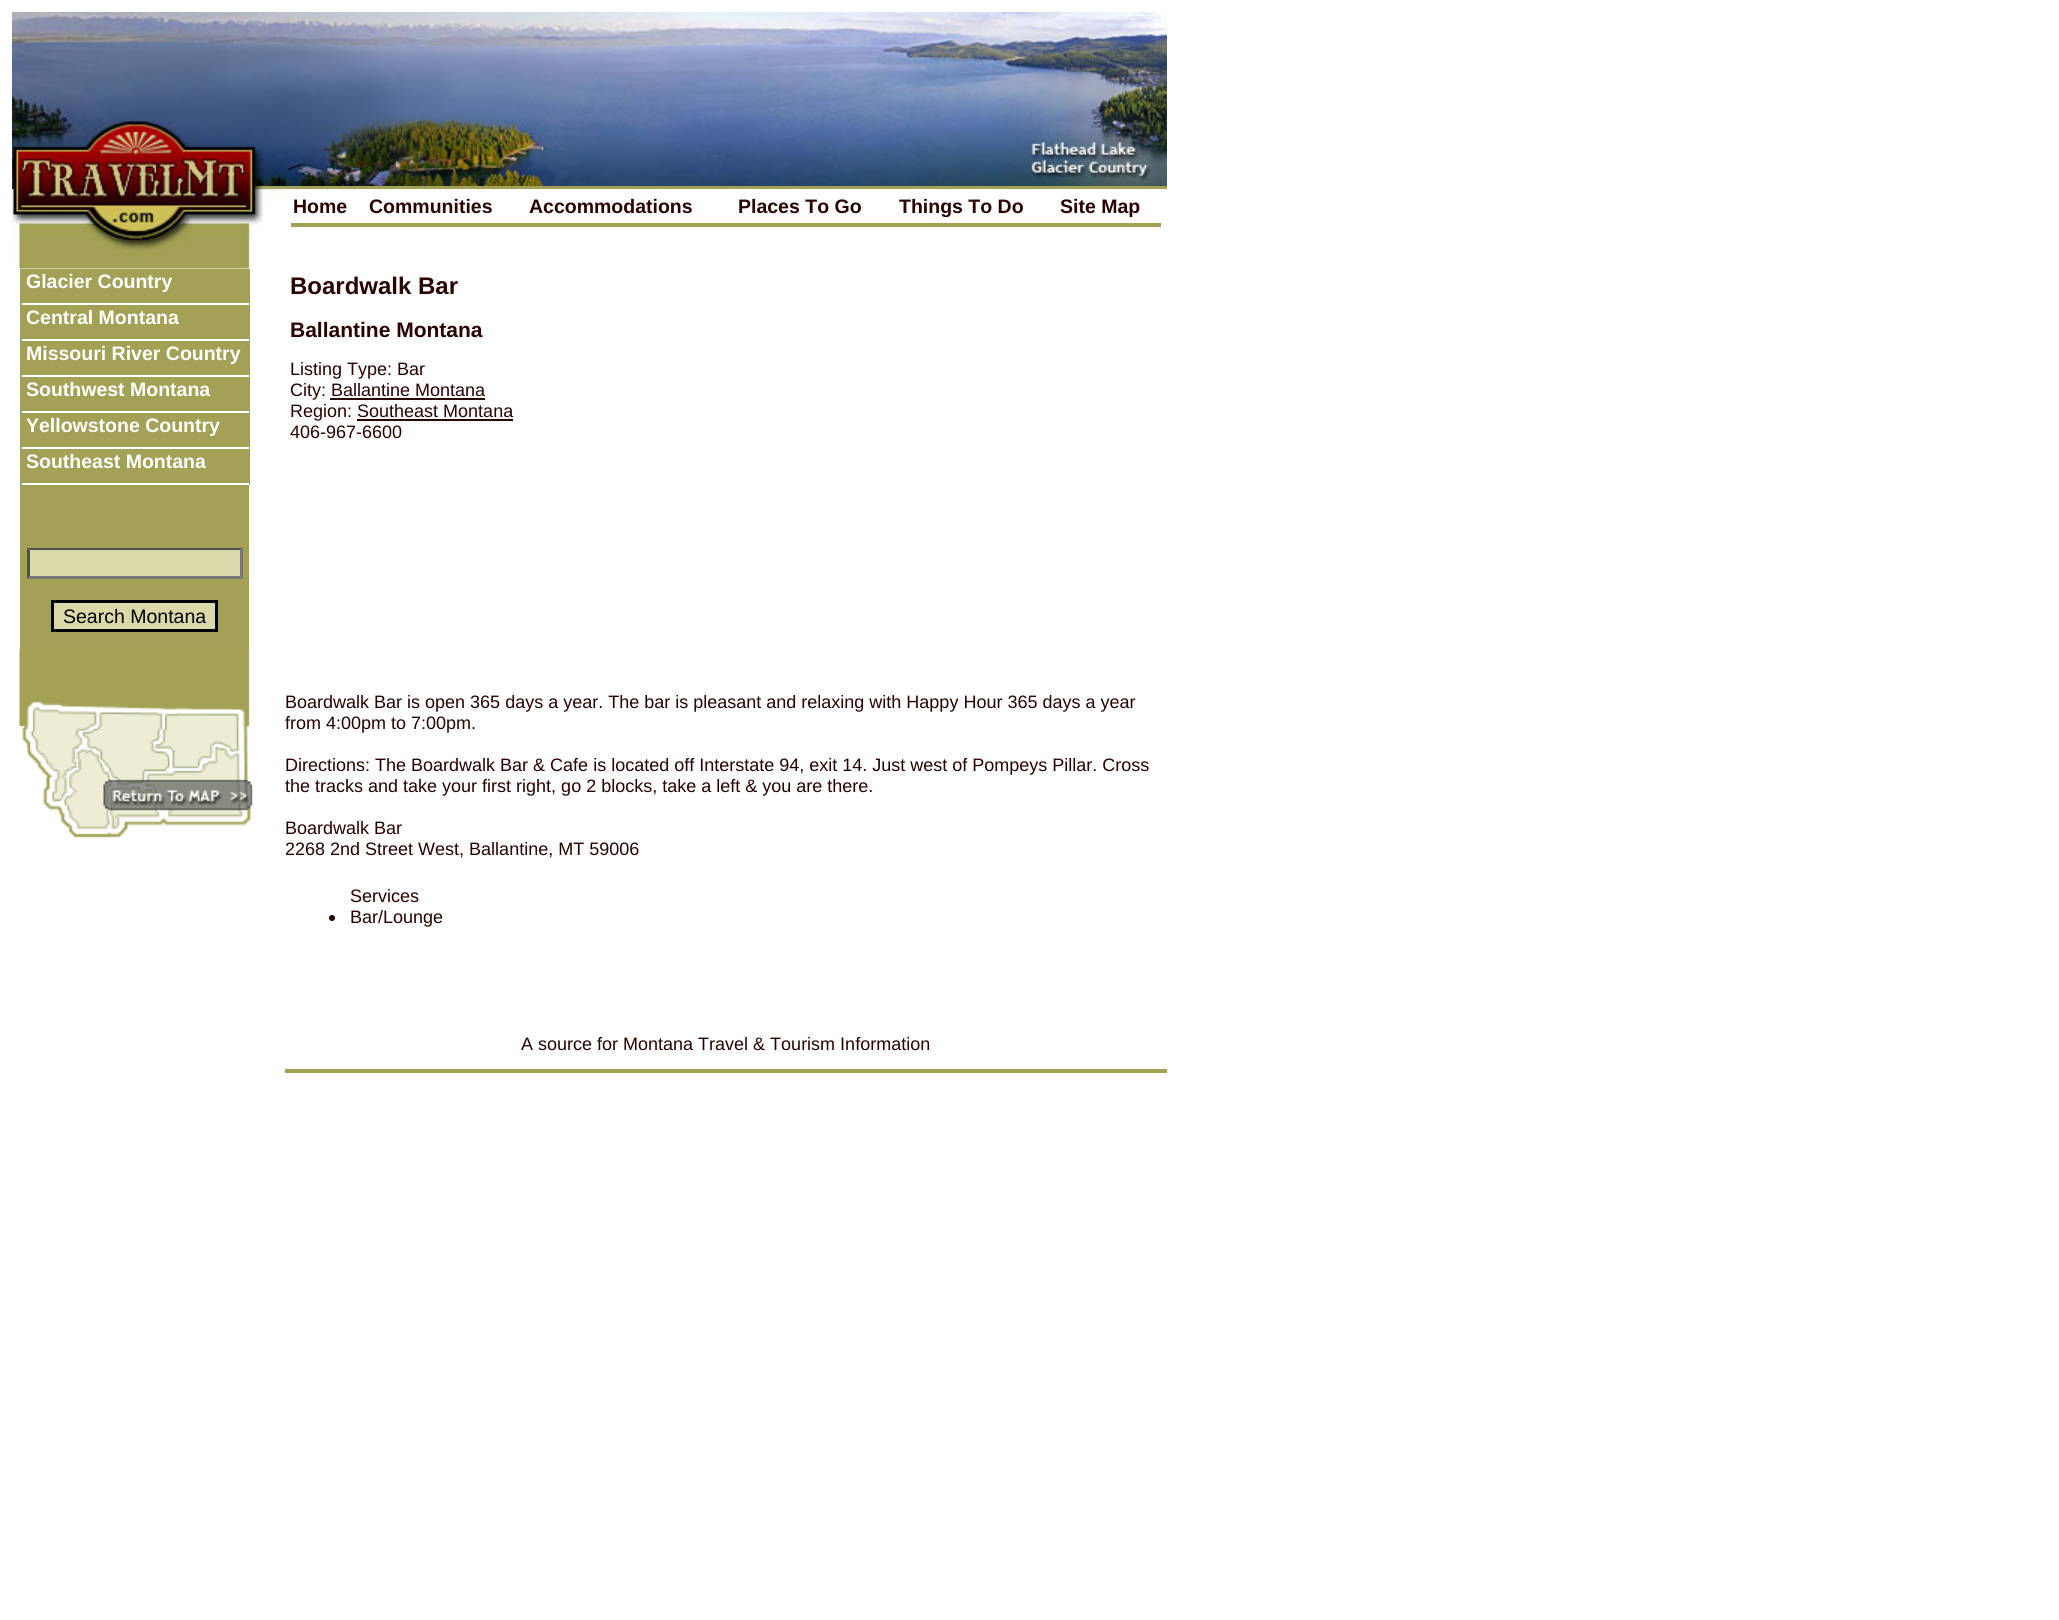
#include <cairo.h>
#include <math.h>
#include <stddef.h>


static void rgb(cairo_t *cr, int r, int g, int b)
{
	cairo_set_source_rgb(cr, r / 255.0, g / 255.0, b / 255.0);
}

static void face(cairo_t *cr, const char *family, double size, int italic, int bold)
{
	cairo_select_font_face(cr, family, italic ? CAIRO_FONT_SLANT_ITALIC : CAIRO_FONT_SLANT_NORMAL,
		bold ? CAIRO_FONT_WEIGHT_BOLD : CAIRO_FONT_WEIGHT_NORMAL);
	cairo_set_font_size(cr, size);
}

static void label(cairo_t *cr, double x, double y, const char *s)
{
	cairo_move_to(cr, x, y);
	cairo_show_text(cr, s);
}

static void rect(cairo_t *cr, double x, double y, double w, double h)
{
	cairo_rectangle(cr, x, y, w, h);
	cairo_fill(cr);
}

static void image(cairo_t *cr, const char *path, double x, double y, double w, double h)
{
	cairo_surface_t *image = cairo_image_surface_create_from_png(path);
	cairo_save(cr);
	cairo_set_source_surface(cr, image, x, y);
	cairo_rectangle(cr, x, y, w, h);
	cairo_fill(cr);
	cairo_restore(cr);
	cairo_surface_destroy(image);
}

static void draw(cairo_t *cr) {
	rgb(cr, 255, 255, 255);
	cairo_paint(cr);
	image(cr, "image0.png", 12, 12, 1155, 174);
	image(cr, "image1.png", 12, 186, 273, 83);
	rgb(cr, 163, 161, 86);
	rect(cr, 285, 186, 882, 3);
	face(cr, "Liberation Sans", 19.5, 0, 1);
	rgb(cr, 40, 1, 0);
	label(cr, 293, 213, "Home");
	label(cr, 369, 213, "Communities");
	label(cr, 529, 213, "Accommodations");
	label(cr, 738, 213, "Places To Go");
	label(cr, 899, 213, "Things To Do");
	label(cr, 1060, 213, "Site Map");
	rgb(cr, 163, 161, 86);
	rect(cr, 291, 223, 870, 4);
	rect(cr, 20, 269, 229, 381);
	rect(cr, 249, 269, 1, 216);
	rgb(cr, 255, 255, 255);
	rect(cr, 20, 303, 229, 2);
	rgb(cr, 163, 161, 86);
	rect(cr, 20, 303, 2, 2);
	rgb(cr, 255, 255, 255);
	label(cr, 26, 288, "Glacier Country");
	rect(cr, 20, 339, 229, 2);
	rgb(cr, 163, 161, 86);
	rect(cr, 20, 339, 2, 2);
	rgb(cr, 255, 255, 255);
	label(cr, 26, 324, "Central Montana");
	rect(cr, 20, 375, 229, 2);
	rgb(cr, 163, 161, 86);
	rect(cr, 20, 375, 2, 2);
	rgb(cr, 255, 255, 255);
	label(cr, 26, 360, "Missouri River Country");
	rect(cr, 20, 411, 229, 2);
	rgb(cr, 163, 161, 86);
	rect(cr, 20, 411, 2, 2);
	rgb(cr, 255, 255, 255);
	label(cr, 26, 396, "Southwest Montana");
	rect(cr, 20, 447, 229, 2);
	rgb(cr, 163, 161, 86);
	rect(cr, 20, 447, 2, 2);
	rgb(cr, 255, 255, 255);
	label(cr, 26, 432, "Yellowstone Country");
	rect(cr, 20, 483, 229, 2);
	rgb(cr, 163, 161, 86);
	rect(cr, 20, 483, 2, 2);
	rgb(cr, 255, 255, 255);
	label(cr, 26, 468, "Southeast Montana");
	rgb(cr, 218, 217, 169);
	rect(cr, 27, 548, 216, 31);
	rgb(cr, 79, 79, 79);
	cairo_new_path(cr);
	cairo_move_to(cr, 27, 548);
	cairo_line_to(cr, 243, 548);
	cairo_line_to(cr, 240, 550);
	cairo_line_to(cr, 30, 550);
	cairo_close_path(cr);
	cairo_fill(cr);
	rgb(cr, 118, 118, 118);
	cairo_new_path(cr);
	cairo_move_to(cr, 243, 547.5);
	cairo_line_to(cr, 243, 579);
	cairo_line_to(cr, 240, 576);
	cairo_line_to(cr, 240, 550.5);
	cairo_close_path(cr);
	cairo_fill(cr);
	cairo_new_path(cr);
	cairo_move_to(cr, 243, 579);
	cairo_line_to(cr, 27, 579);
	cairo_line_to(cr, 30, 576);
	cairo_line_to(cr, 240, 576);
	cairo_close_path(cr);
	cairo_fill(cr);
	rgb(cr, 79, 79, 79);
	cairo_new_path(cr);
	cairo_move_to(cr, 27, 579);
	cairo_line_to(cr, 27, 547.5);
	cairo_line_to(cr, 30, 550.5);
	cairo_line_to(cr, 30, 576);
	cairo_close_path(cr);
	cairo_fill(cr);
	rgb(cr, 218, 217, 169);
	cairo_rectangle(cr, 52.5, 601.5, 164, 29);
	cairo_fill_preserve(cr);
	rgb(cr, 0, 0, 0);
	cairo_set_line_width(cr, 3);
	cairo_stroke(cr);
	face(cr, "Liberation Sans", 19.5, 0, 0);
	label(cr, 63, 623, "Search Montana");
	image(cr, "image2.png", 19, 649, 234, 189);
	face(cr, "Liberation Sans", 24, 0, 1);
	rgb(cr, 40, 1, 0);
	label(cr, 290, 294, "Boardwalk Bar");
	face(cr, "Liberation Sans", 21, 0, 1);
	label(cr, 290, 337, "Ballantine Montana");
	face(cr, "Liberation Sans", 18, 0, 0);
	label(cr, 290, 375, "Listing Type: Bar");
	label(cr, 290, 396, "City: Ballantine Montana");
	rect(cr, 330, 398, 155, 2);
	label(cr, 290, 417, "Region: Southeast Montana");
	rect(cr, 357, 419, 156, 2);
	label(cr, 290, 438, "406-967-6600");
	label(cr, 285, 708, "Boardwalk Bar is open 365 days a year. The bar is pleasant and relaxing with Happy Hour 365 days a year");
	label(cr, 285, 729, "from 4:00pm to 7:00pm.");
	label(cr, 285, 771, "Directions: The Boardwalk Bar & Cafe is located off Interstate 94, exit 14. Just west of Pompeys Pillar. Cross");
	label(cr, 285, 792, "the tracks and take your first right, go 2 blocks, take a left & you are there.");
	label(cr, 285, 834, "Boardwalk Bar");
	label(cr, 285, 855, "2268 2nd Street West, Ballantine, MT 59006");
	label(cr, 350, 902, "Services");
	cairo_new_path(cr);
	cairo_arc(cr, 332, 918, 3, 0, 2 * M_PI);
	cairo_fill(cr);
	label(cr, 350, 923, "Bar/Lounge");
	label(cr, 521, 1050, "A source for Montana Travel & Tourism Information");
	rgb(cr, 163, 161, 86);
	rect(cr, 285, 1069, 882, 4);
}

int main(void) {
	cairo_surface_t *surface = cairo_image_surface_create(CAIRO_FORMAT_RGB24, 2059, 1620);
	cairo_t *cr = cairo_create(surface);
	cairo_font_options_t *options = cairo_font_options_create();
	cairo_font_options_set_hint_metrics(options, CAIRO_HINT_METRICS_OFF);
	cairo_font_options_set_hint_style(options, CAIRO_HINT_STYLE_NONE);
	cairo_set_font_options(cr, options);
	cairo_set_miter_limit(cr, 4);
	draw(cr);
	cairo_surface_write_to_png(surface, "render.png");
	cairo_font_options_destroy(options);
	cairo_destroy(cr);
	cairo_surface_destroy(surface);
	return 0;
}
